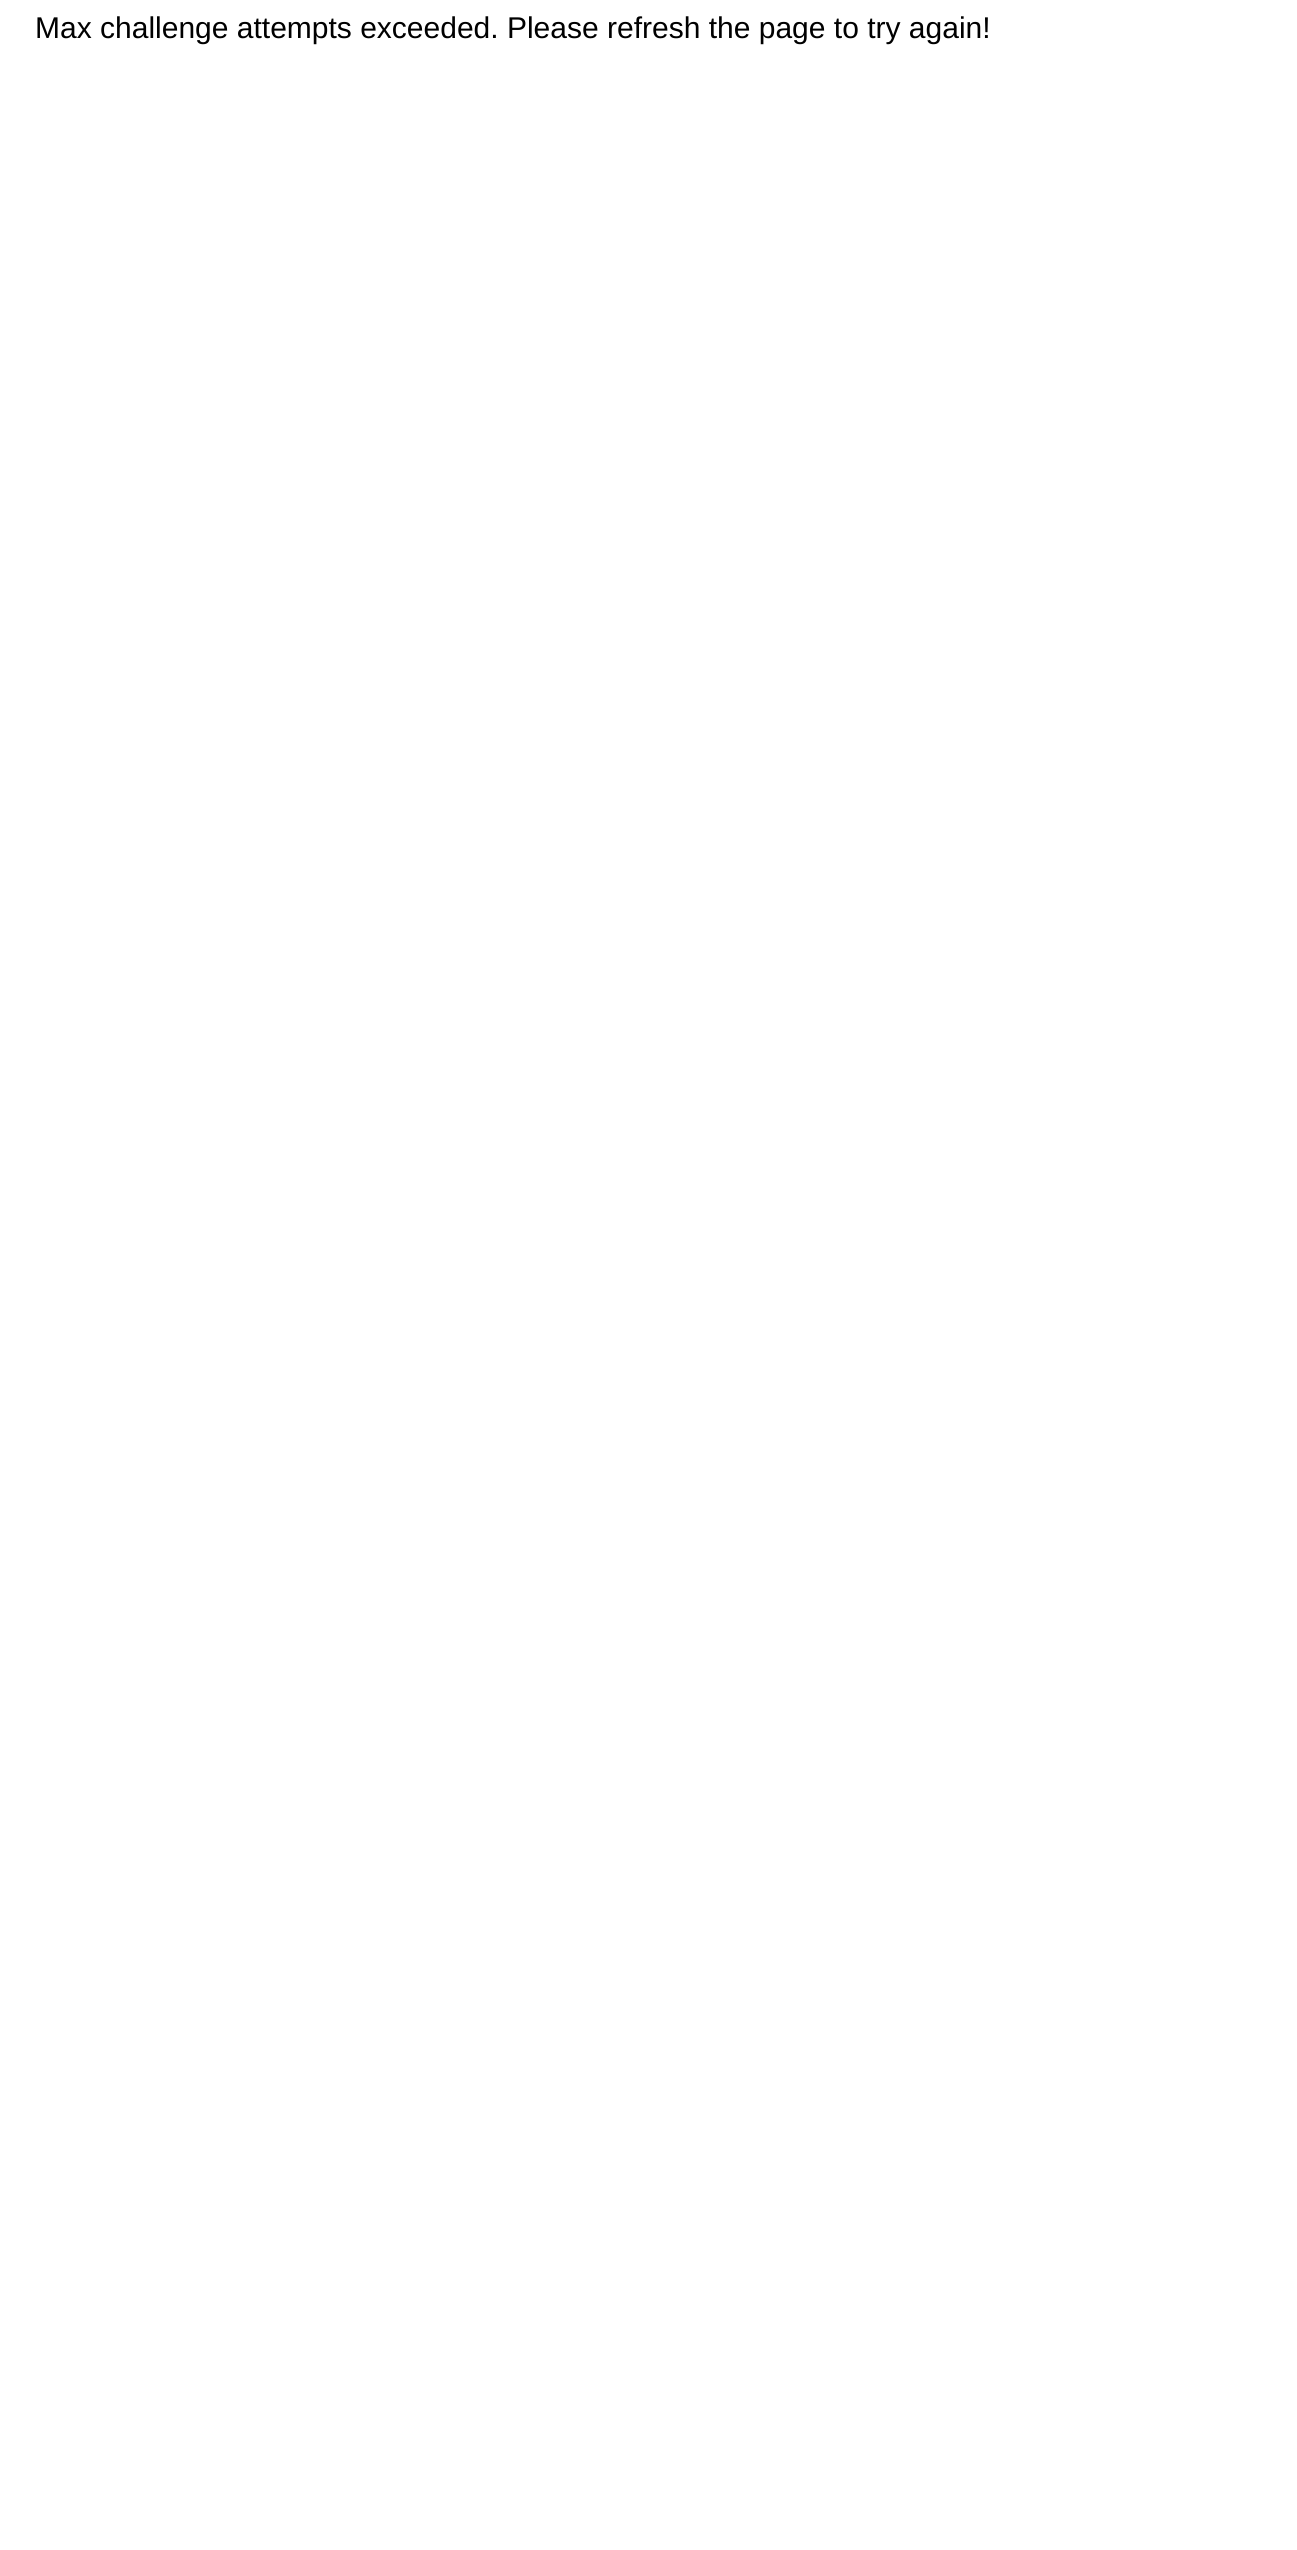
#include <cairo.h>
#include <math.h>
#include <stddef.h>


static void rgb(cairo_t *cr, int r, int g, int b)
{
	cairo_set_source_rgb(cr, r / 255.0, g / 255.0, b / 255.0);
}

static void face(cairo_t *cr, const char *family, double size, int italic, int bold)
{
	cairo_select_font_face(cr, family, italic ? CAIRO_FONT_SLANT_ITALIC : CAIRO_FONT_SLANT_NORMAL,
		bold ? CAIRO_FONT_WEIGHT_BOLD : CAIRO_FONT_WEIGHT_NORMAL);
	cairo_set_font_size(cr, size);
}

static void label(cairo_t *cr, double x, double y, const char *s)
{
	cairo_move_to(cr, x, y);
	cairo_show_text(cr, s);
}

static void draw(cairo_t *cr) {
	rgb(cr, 255, 255, 255);
	cairo_paint(cr);
	face(cr, "Liberation Sans", 30, 0, 0);
	rgb(cr, 0, 0, 0);
	label(cr, 35, 38, "Max challenge attempts exceeded. Please refresh the page to try again!");
}

int main(void) {
	cairo_surface_t *surface = cairo_image_surface_create(CAIRO_FORMAT_RGB24, 1297, 2550);
	cairo_t *cr = cairo_create(surface);
	cairo_font_options_t *options = cairo_font_options_create();
	cairo_font_options_set_hint_metrics(options, CAIRO_HINT_METRICS_OFF);
	cairo_font_options_set_hint_style(options, CAIRO_HINT_STYLE_NONE);
	cairo_set_font_options(cr, options);
	cairo_set_miter_limit(cr, 4);
	draw(cr);
	cairo_surface_write_to_png(surface, "render.png");
	cairo_font_options_destroy(options);
	cairo_destroy(cr);
	cairo_surface_destroy(surface);
	return 0;
}
